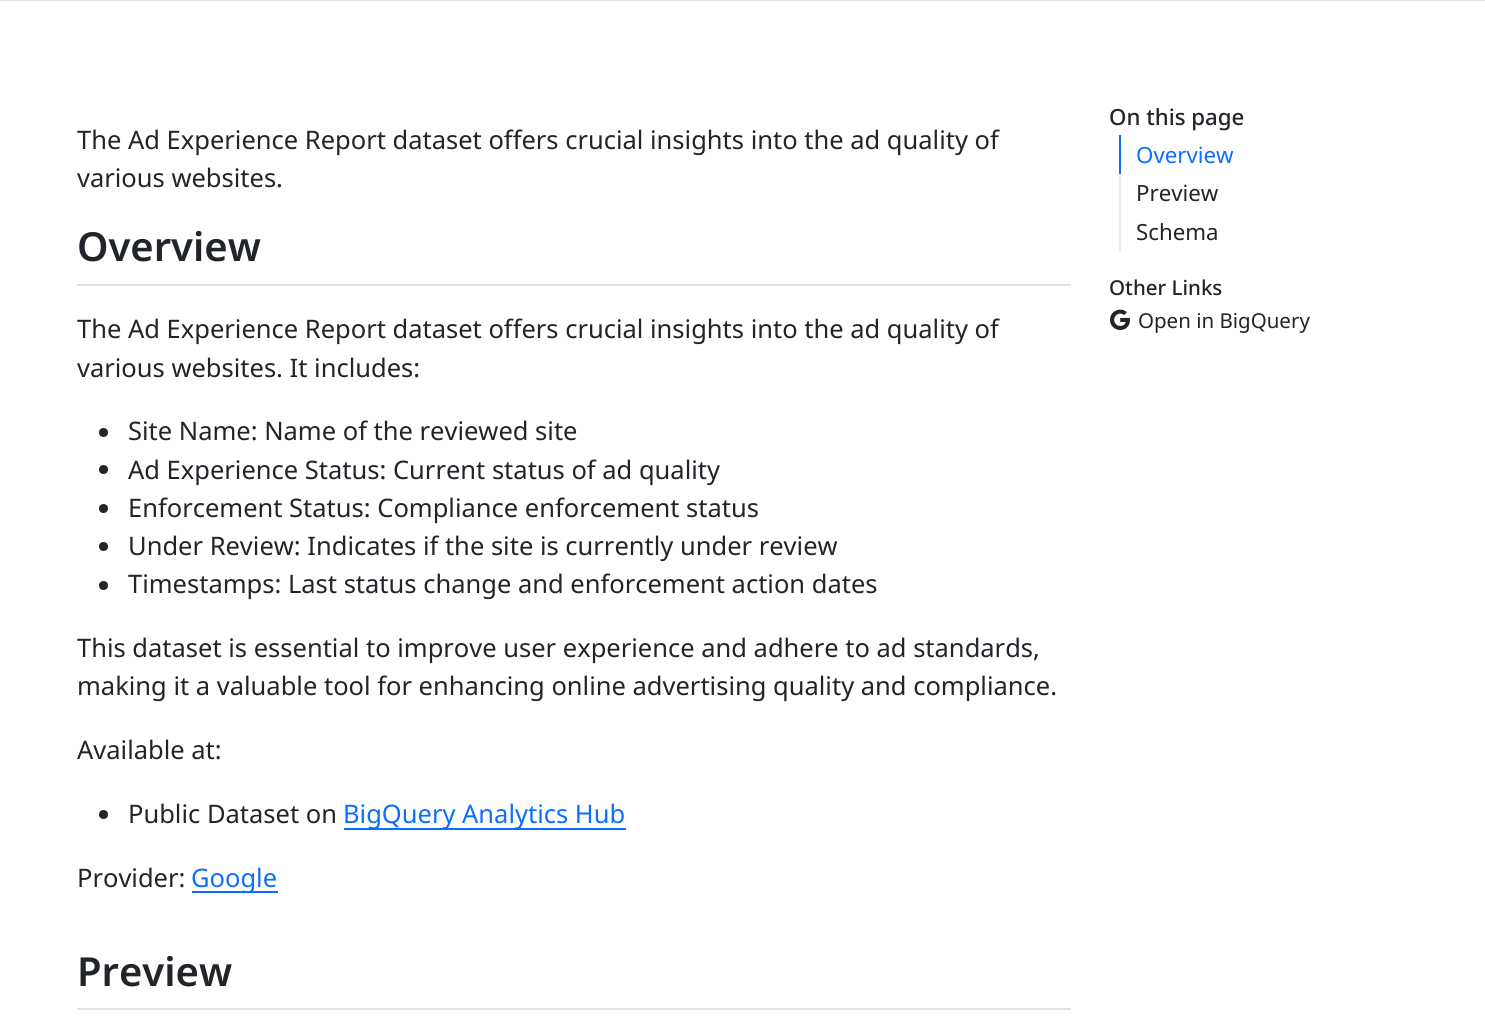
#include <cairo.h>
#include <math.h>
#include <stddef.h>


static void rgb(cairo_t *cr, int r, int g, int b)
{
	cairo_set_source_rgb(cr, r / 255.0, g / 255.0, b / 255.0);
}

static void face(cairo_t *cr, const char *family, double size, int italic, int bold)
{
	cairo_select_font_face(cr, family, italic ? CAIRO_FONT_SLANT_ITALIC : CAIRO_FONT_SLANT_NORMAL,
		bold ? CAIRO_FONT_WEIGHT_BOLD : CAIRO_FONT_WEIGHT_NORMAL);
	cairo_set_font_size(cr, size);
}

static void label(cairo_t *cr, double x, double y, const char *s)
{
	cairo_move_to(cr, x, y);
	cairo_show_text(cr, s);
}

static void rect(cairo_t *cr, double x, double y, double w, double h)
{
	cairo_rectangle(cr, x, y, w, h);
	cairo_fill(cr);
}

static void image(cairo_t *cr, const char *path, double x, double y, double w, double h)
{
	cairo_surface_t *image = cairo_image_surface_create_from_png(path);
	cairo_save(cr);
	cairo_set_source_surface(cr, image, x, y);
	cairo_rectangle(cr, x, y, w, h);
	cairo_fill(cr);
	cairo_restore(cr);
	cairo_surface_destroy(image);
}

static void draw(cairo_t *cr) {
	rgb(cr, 255, 255, 255);
	cairo_paint(cr);
	rgb(cr, 222, 226, 230);
	rect(cr, 0, 0, 1485, 1);
	face(cr, "Noto Sans", 25.5, 0, 0);
	rgb(cr, 33, 37, 41);
	label(cr, 77, 149, "The Ad Experience Report dataset offers crucial insights into the ad quality of");
	label(cr, 77, 187, "various websites.");
	rgb(cr, 222, 226, 230);
	rect(cr, 77, 284, 994, 2);
	face(cr, "Noto Sans SemiBold", 40, 0, 0);
	rgb(cr, 33, 37, 41);
	label(cr, 77, 261, "Overview");
	face(cr, "Noto Sans", 25.5, 0, 0);
	label(cr, 77, 338, "The Ad Experience Report dataset offers crucial insights into the ad quality of");
	label(cr, 77, 377, "various websites. It includes:");
	cairo_new_path(cr);
	cairo_arc(cr, 103.5, 432.5, 4.5, 0, 2 * M_PI);
	cairo_fill(cr);
	label(cr, 128, 440, "Site Name: Name of the reviewed site");
	cairo_new_path(cr);
	cairo_arc(cr, 103.5, 469.5, 4.5, 0, 2 * M_PI);
	cairo_fill(cr);
	label(cr, 128, 479, "Ad Experience Status: Current status of ad quality");
	cairo_new_path(cr);
	cairo_arc(cr, 103.5, 508.5, 4.5, 0, 2 * M_PI);
	cairo_fill(cr);
	label(cr, 128, 517, "Enforcement Status: Compliance enforcement status");
	cairo_new_path(cr);
	cairo_arc(cr, 103.5, 546.5, 4.5, 0, 2 * M_PI);
	cairo_fill(cr);
	label(cr, 128, 555, "Under Review: Indicates if the site is currently under review");
	cairo_new_path(cr);
	cairo_arc(cr, 103.5, 585.5, 4.5, 0, 2 * M_PI);
	cairo_fill(cr);
	label(cr, 128, 593, "Timestamps: Last status change and enforcement action dates");
	label(cr, 77, 657, "This dataset is essential to improve user experience and adhere to ad standards,");
	label(cr, 77, 695, "making it a valuable tool for enhancing online advertising quality and compliance.");
	label(cr, 77, 759, "Available at:");
	cairo_new_path(cr);
	cairo_arc(cr, 103.5, 814.5, 4.5, 0, 2 * M_PI);
	cairo_fill(cr);
	label(cr, 128, 823, "Public Dataset on");
	rgb(cr, 13, 110, 253);
	rect(cr, 344, 828, 282, 2);
	label(cr, 343, 823, "BigQuery Analytics Hub");
	rgb(cr, 33, 37, 41);
	label(cr, 77, 887, "Provider:");
	rgb(cr, 13, 110, 253);
	rect(cr, 192, 891, 86, 2);
	label(cr, 191, 887, "Google");
	rgb(cr, 222, 226, 230);
	rect(cr, 77, 1008, 994, 2);
	face(cr, "Noto Sans SemiBold", 40, 0, 0);
	rgb(cr, 33, 37, 41);
	label(cr, 77, 986, "Preview");
	face(cr, "Noto Sans Medium", 22.25, 0, 0);
	label(cr, 1109, 125, "On this page");
	rgb(cr, 13, 110, 253);
	rect(cr, 1119, 135, 2, 39);
	face(cr, "Noto Sans", 22.25, 0, 0);
	label(cr, 1136, 163, "Overview");
	rgb(cr, 233, 236, 239);
	rect(cr, 1119, 174, 2, 77);
	rgb(cr, 33, 37, 41);
	label(cr, 1136, 201, "Preview");
	label(cr, 1136, 240, "Schema");
	face(cr, "Noto Sans Medium", 20.5, 0, 0);
	label(cr, 1109, 295, "Other Links");
	image(cr, "image0.png", 1110, 309, 20, 21);
	face(cr, "Noto Sans", 20.5, 0, 0);
	label(cr, 1138, 328, "Open in BigQuery");
}

int main(void) {
	cairo_surface_t *surface = cairo_image_surface_create(CAIRO_FORMAT_RGB24, 1485, 1035);
	cairo_t *cr = cairo_create(surface);
	cairo_font_options_t *options = cairo_font_options_create();
	cairo_font_options_set_hint_metrics(options, CAIRO_HINT_METRICS_OFF);
	cairo_font_options_set_hint_style(options, CAIRO_HINT_STYLE_NONE);
	cairo_set_font_options(cr, options);
	cairo_set_miter_limit(cr, 4);
	draw(cr);
	cairo_surface_write_to_png(surface, "render.png");
	cairo_font_options_destroy(options);
	cairo_destroy(cr);
	cairo_surface_destroy(surface);
	return 0;
}
